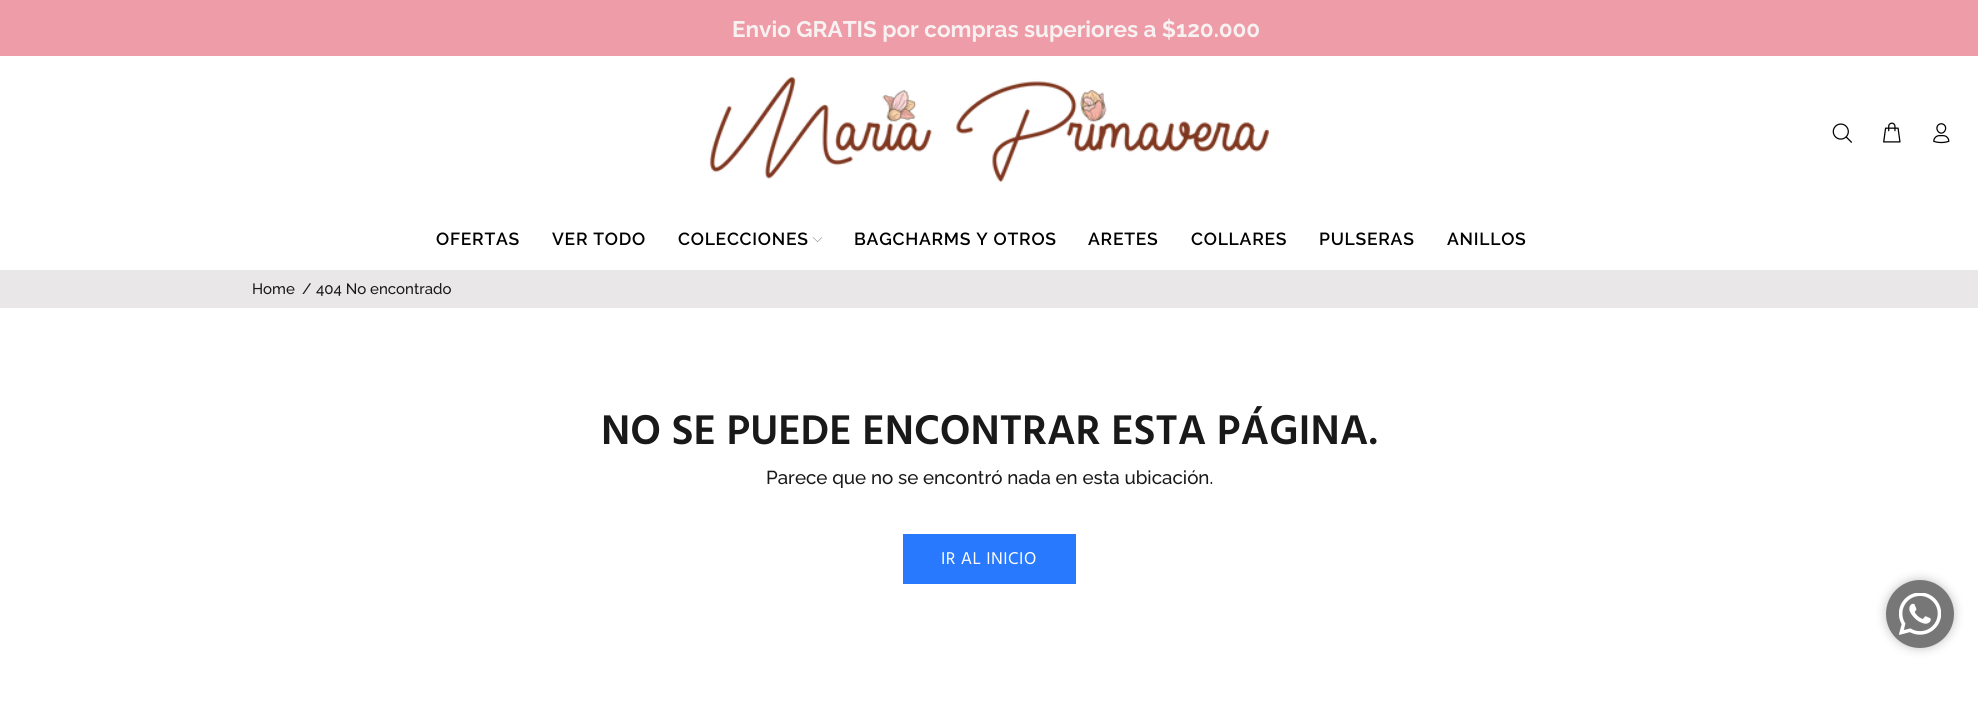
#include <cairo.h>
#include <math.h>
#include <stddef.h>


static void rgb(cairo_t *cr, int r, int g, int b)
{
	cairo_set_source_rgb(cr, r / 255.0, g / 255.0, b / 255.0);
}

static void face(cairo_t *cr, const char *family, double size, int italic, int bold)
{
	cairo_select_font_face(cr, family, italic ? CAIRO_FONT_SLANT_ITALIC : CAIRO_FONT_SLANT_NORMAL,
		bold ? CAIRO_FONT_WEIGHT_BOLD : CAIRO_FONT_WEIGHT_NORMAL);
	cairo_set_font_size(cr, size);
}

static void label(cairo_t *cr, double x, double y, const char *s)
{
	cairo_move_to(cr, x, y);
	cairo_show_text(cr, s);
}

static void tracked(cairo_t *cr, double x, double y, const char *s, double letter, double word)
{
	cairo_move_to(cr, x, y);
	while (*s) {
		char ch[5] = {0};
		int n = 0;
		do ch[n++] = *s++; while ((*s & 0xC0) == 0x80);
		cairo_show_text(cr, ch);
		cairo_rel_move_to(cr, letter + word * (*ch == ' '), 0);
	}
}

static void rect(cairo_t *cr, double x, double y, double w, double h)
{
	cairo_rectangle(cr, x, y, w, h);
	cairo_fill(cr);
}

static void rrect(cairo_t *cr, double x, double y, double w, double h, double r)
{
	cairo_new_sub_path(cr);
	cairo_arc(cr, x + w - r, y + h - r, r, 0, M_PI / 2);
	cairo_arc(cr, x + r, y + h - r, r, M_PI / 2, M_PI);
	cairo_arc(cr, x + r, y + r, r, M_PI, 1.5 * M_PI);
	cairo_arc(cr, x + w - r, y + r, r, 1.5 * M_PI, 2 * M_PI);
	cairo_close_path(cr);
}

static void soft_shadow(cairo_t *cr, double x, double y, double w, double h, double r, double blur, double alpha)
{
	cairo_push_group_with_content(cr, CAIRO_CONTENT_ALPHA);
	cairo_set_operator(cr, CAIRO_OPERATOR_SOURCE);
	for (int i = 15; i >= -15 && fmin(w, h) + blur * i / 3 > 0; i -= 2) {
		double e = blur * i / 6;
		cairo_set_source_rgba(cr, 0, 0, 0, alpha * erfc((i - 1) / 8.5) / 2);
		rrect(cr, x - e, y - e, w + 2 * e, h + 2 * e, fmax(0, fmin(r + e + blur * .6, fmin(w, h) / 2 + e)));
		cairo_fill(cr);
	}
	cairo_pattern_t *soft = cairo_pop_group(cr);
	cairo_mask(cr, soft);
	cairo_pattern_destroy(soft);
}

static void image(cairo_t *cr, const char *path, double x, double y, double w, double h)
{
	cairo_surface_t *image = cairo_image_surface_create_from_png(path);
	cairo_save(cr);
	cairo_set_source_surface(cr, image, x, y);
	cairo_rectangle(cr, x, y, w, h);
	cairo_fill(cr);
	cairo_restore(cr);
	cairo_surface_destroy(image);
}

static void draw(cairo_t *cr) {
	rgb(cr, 255, 255, 255);
	cairo_paint(cr);
	rgb(cr, 238, 156, 167);
	rect(cr, 0, 0, 1978, 56);
	face(cr, "Raleway", 22.5, 0, 1);
	rgb(cr, 247, 241, 241);
	label(cr, 732, 37, "Envio GRATIS por compras superiores a $120.000");
	image(cr, "image0.png", 709, 76, 561, 107);
	image(cr, "image1.png", 1832, 123, 20, 20);
	image(cr, "image2.png", 1883, 122, 18, 21);
	image(cr, "image3.png", 1933, 123, 17, 21);
	face(cr, "Raleway SemiBold", 17.5, 0, 0);
	rgb(cr, 0, 0, 0);
	tracked(cr, 436, 245, "OFERTAS", 0.75, 0);
	tracked(cr, 552, 245, "VER TODO", 0.75, 0);
	tracked(cr, 678, 245, "COLECCIONES", 0.75, 0);
	image(cr, "image4.png", 812, 237, 11, 5);
	tracked(cr, 854, 245, "BAGCHARMS Y OTROS", 0.75, 0);
	tracked(cr, 1088, 245, "ARETES", 0.75, 0);
	tracked(cr, 1191, 245, "COLLARES", 0.75, 0);
	tracked(cr, 1319, 245, "PULSERAS", 0.75, 0);
	tracked(cr, 1447, 245, "ANILLOS", 0.75, 0);
	rgb(cr, 233, 231, 231);
	rect(cr, 0, 270, 1978, 38);
	face(cr, "Raleway Medium", 15, 0, 0);
	rgb(cr, 25, 25, 25);
	label(cr, 252, 294, "Home");
	label(cr, 302, 294, "/");
	label(cr, 316, 294, "404 No encontrado");
	face(cr, "Hind SemiBold", 42.5, 0, 0);
	label(cr, 601, 444, "NO SE PUEDE ENCONTRAR ESTA PÁGINA.");
	face(cr, "Raleway Medium", 18.75, 0, 0);
	label(cr, 766, 484, "Parece que no se encontró nada en esta ubicación.");
	rgb(cr, 40, 121, 254);
	rect(cr, 903, 534, 173, 50);
	face(cr, "Hind", 17.5, 0, 0);
	rgb(cr, 255, 255, 255);
	tracked(cr, 941, 564, "IR AL INICIO", 0.5, 0);
	rgb(cr, 194, 194, 194);
	soft_shadow(cr, 1886, 580, 68, 68, 34, 5, 1);
	rgb(cr, 119, 119, 119);
	cairo_arc(cr, 1920, 614, 34, 0, 2 * M_PI);
	cairo_fill(cr);
	image(cr, "image5.png", 1899, 593, 42, 42);
}

int main(void) {
	cairo_surface_t *surface = cairo_image_surface_create(CAIRO_FORMAT_RGB24, 1978, 710);
	cairo_t *cr = cairo_create(surface);
	cairo_font_options_t *options = cairo_font_options_create();
	cairo_font_options_set_hint_metrics(options, CAIRO_HINT_METRICS_OFF);
	cairo_font_options_set_hint_style(options, CAIRO_HINT_STYLE_NONE);
	cairo_set_font_options(cr, options);
	cairo_set_miter_limit(cr, 4);
	draw(cr);
	cairo_surface_write_to_png(surface, "render.png");
	cairo_font_options_destroy(options);
	cairo_destroy(cr);
	cairo_surface_destroy(surface);
	return 0;
}
